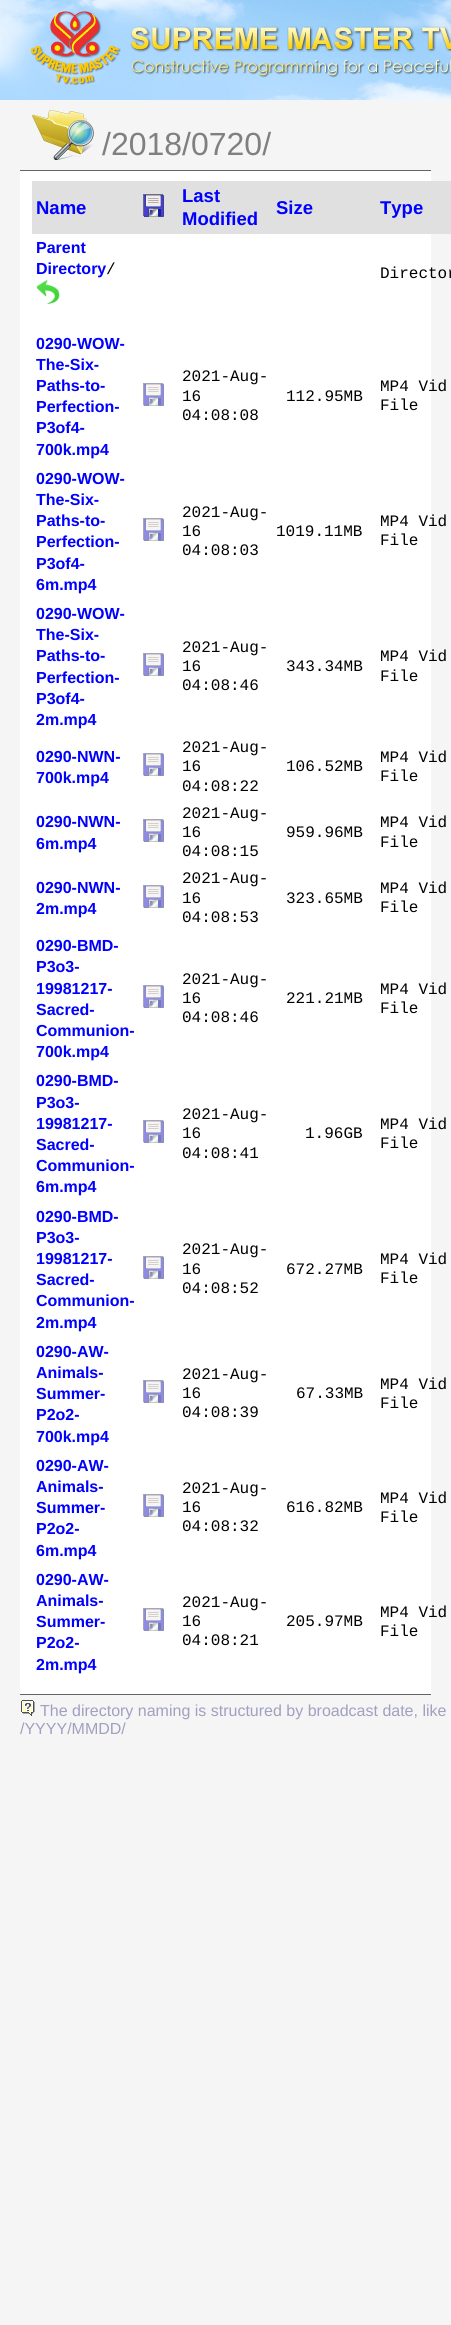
#include <cairo.h>
#include <math.h>
#include <stddef.h>


static void rgb(cairo_t *cr, int r, int g, int b)
{
	cairo_set_source_rgb(cr, r / 255.0, g / 255.0, b / 255.0);
}

static void face(cairo_t *cr, const char *family, double size, int italic, int bold)
{
	cairo_select_font_face(cr, family, italic ? CAIRO_FONT_SLANT_ITALIC : CAIRO_FONT_SLANT_NORMAL,
		bold ? CAIRO_FONT_WEIGHT_BOLD : CAIRO_FONT_WEIGHT_NORMAL);
	cairo_set_font_size(cr, size);
}

static void label(cairo_t *cr, double x, double y, const char *s)
{
	cairo_move_to(cr, x, y);
	cairo_show_text(cr, s);
}

static void rect(cairo_t *cr, double x, double y, double w, double h)
{
	cairo_rectangle(cr, x, y, w, h);
	cairo_fill(cr);
}

static void image(cairo_t *cr, const char *path, double x, double y, double w, double h)
{
	cairo_surface_t *image = cairo_image_surface_create_from_png(path);
	cairo_save(cr);
	cairo_set_source_surface(cr, image, x, y);
	cairo_rectangle(cr, x, y, w, h);
	cairo_fill(cr);
	cairo_restore(cr);
	cairo_surface_destroy(image);
}

static void draw(cairo_t *cr) {
	rgb(cr, 245, 245, 245);
	cairo_paint(cr);
	image(cr, "image0.png", 0, 0, 451, 100);
	image(cr, "image1.png", 30, 10, 421, 75);
	image(cr, "image2.png", 32, 110, 62, 50);
	face(cr, "Liberation Sans", 32, 0, 0);
	rgb(cr, 128, 128, 128);
	label(cr, 102, 155, "/2018/0720/");
	rgb(cr, 255, 255, 255);
	rect(cr, 20, 171, 411, 1523);
	rgb(cr, 100, 100, 100);
	rect(cr, 20, 170, 411, 1);
	rect(cr, 20, 1694, 411, 1);
	rgb(cr, 224, 224, 224);
	rect(cr, 32, 181, 419, 53);
	face(cr, "Liberation Sans", 18.5, 0, 1);
	rgb(cr, 0, 0, 255);
	label(cr, 36, 214, "Name");
	image(cr, "image3.png", 143, 194, 21, 23);
	label(cr, 182, 202, "Last");
	label(cr, 182, 225, "Modified");
	label(cr, 276, 214, "Size");
	label(cr, 380, 214, "Type");
	face(cr, "Liberation Sans", 16, 0, 1);
	label(cr, 36, 253, "Parent");
	label(cr, 36, 274, "Directory");
	face(cr, "Liberation Mono", 16, 0, 0);
	rgb(cr, 0, 0, 0);
	label(cr, 106, 274, "/");
	image(cr, "image4.png", 36, 280, 24, 24);
	label(cr, 380, 278, "Director");
	face(cr, "Liberation Sans", 16, 0, 1);
	rgb(cr, 0, 0, 255);
	label(cr, 36, 349, "0290-WOW-");
	label(cr, 36, 370, "The-Six-");
	label(cr, 36, 391, "Paths-to-");
	label(cr, 36, 412, "Perfection-");
	label(cr, 36, 433, "P3of4-");
	label(cr, 36, 455, "700k.mp4");
	image(cr, "image5.png", 143, 383, 21, 23);
	face(cr, "Liberation Mono", 16, 0, 0);
	rgb(cr, 0, 0, 0);
	label(cr, 182, 381, "2021-Aug-");
	label(cr, 182, 401, "16");
	label(cr, 182, 420, "04:08:08");
	label(cr, 286, 401, "112.95MB");
	label(cr, 380, 391, "MP4 Vid");
	label(cr, 380, 410, "File");
	face(cr, "Liberation Sans", 16, 0, 1);
	rgb(cr, 0, 0, 255);
	label(cr, 36, 484, "0290-WOW-");
	label(cr, 36, 505, "The-Six-");
	label(cr, 36, 526, "Paths-to-");
	label(cr, 36, 547, "Perfection-");
	label(cr, 36, 569, "P3of4-");
	label(cr, 36, 590, "6m.mp4");
	image(cr, "image5.png", 143, 518, 21, 23);
	face(cr, "Liberation Mono", 16, 0, 0);
	rgb(cr, 0, 0, 0);
	label(cr, 182, 517, "2021-Aug-");
	label(cr, 182, 536, "16");
	label(cr, 182, 555, "04:08:03");
	label(cr, 276, 536, "1019.11MB");
	label(cr, 380, 526, "MP4 Vid");
	label(cr, 380, 545, "File");
	face(cr, "Liberation Sans", 16, 0, 1);
	rgb(cr, 0, 0, 255);
	label(cr, 36, 619, "0290-WOW-");
	label(cr, 36, 640, "The-Six-");
	label(cr, 36, 661, "Paths-to-");
	label(cr, 36, 683, "Perfection-");
	label(cr, 36, 704, "P3of4-");
	label(cr, 36, 725, "2m.mp4");
	image(cr, "image5.png", 143, 653, 21, 23);
	face(cr, "Liberation Mono", 16, 0, 0);
	rgb(cr, 0, 0, 0);
	label(cr, 182, 652, "2021-Aug-");
	label(cr, 182, 671, "16");
	label(cr, 182, 690, "04:08:46");
	label(cr, 286, 671, "343.34MB");
	label(cr, 380, 661, "MP4 Vid");
	label(cr, 380, 681, "File");
	face(cr, "Liberation Sans", 16, 0, 1);
	rgb(cr, 0, 0, 255);
	label(cr, 36, 762, "0290-NWN-");
	label(cr, 36, 783, "700k.mp4");
	image(cr, "image5.png", 143, 753, 21, 23);
	face(cr, "Liberation Mono", 16, 0, 0);
	rgb(cr, 0, 0, 0);
	label(cr, 182, 752, "2021-Aug-");
	label(cr, 182, 771, "16");
	label(cr, 182, 791, "04:08:22");
	label(cr, 286, 771, "106.52MB");
	label(cr, 380, 762, "MP4 Vid");
	label(cr, 380, 781, "File");
	face(cr, "Liberation Sans", 16, 0, 1);
	rgb(cr, 0, 0, 255);
	label(cr, 36, 827, "0290-NWN-");
	label(cr, 36, 849, "6m.mp4");
	image(cr, "image5.png", 143, 819, 21, 23);
	face(cr, "Liberation Mono", 16, 0, 0);
	rgb(cr, 0, 0, 0);
	label(cr, 182, 818, "2021-Aug-");
	label(cr, 182, 837, "16");
	label(cr, 182, 856, "04:08:15");
	label(cr, 286, 837, "959.96MB");
	label(cr, 380, 827, "MP4 Vid");
	label(cr, 380, 847, "File");
	face(cr, "Liberation Sans", 16, 0, 1);
	rgb(cr, 0, 0, 255);
	label(cr, 36, 893, "0290-NWN-");
	label(cr, 36, 914, "2m.mp4");
	image(cr, "image5.png", 143, 885, 21, 23);
	face(cr, "Liberation Mono", 16, 0, 0);
	rgb(cr, 0, 0, 0);
	label(cr, 182, 883, "2021-Aug-");
	label(cr, 182, 903, "16");
	label(cr, 182, 922, "04:08:53");
	label(cr, 286, 903, "323.65MB");
	label(cr, 380, 893, "MP4 Vid");
	label(cr, 380, 912, "File");
	face(cr, "Liberation Sans", 16, 0, 1);
	rgb(cr, 0, 0, 255);
	label(cr, 36, 951, "0290-BMD-");
	label(cr, 36, 972, "P3o3-");
	label(cr, 36, 994, "19981217-");
	label(cr, 36, 1015, "Sacred-");
	label(cr, 36, 1036, "Communion-");
	label(cr, 36, 1057, "700k.mp4");
	image(cr, "image5.png", 143, 985, 21, 23);
	face(cr, "Liberation Mono", 16, 0, 0);
	rgb(cr, 0, 0, 0);
	label(cr, 182, 984, "2021-Aug-");
	label(cr, 182, 1003, "16");
	label(cr, 182, 1022, "04:08:46");
	label(cr, 286, 1003, "221.21MB");
	label(cr, 380, 994, "MP4 Vid");
	label(cr, 380, 1013, "File");
	face(cr, "Liberation Sans", 16, 0, 1);
	rgb(cr, 0, 0, 255);
	label(cr, 36, 1086, "0290-BMD-");
	label(cr, 36, 1108, "P3o3-");
	label(cr, 36, 1129, "19981217-");
	label(cr, 36, 1150, "Sacred-");
	label(cr, 36, 1171, "Communion-");
	label(cr, 36, 1192, "6m.mp4");
	image(cr, "image5.png", 143, 1120, 21, 23);
	face(cr, "Liberation Mono", 16, 0, 0);
	rgb(cr, 0, 0, 0);
	label(cr, 182, 1119, "2021-Aug-");
	label(cr, 182, 1138, "16");
	label(cr, 182, 1158, "04:08:41");
	label(cr, 305, 1138, "1.96GB");
	label(cr, 380, 1129, "MP4 Vid");
	label(cr, 380, 1148, "File");
	face(cr, "Liberation Sans", 16, 0, 1);
	rgb(cr, 0, 0, 255);
	label(cr, 36, 1222, "0290-BMD-");
	label(cr, 36, 1243, "P3o3-");
	label(cr, 36, 1264, "19981217-");
	label(cr, 36, 1285, "Sacred-");
	label(cr, 36, 1306, "Communion-");
	label(cr, 36, 1328, "2m.mp4");
	image(cr, "image5.png", 143, 1256, 21, 23);
	face(cr, "Liberation Mono", 16, 0, 0);
	rgb(cr, 0, 0, 0);
	label(cr, 182, 1254, "2021-Aug-");
	label(cr, 182, 1274, "16");
	label(cr, 182, 1293, "04:08:52");
	label(cr, 286, 1274, "672.27MB");
	label(cr, 380, 1264, "MP4 Vid");
	label(cr, 380, 1283, "File");
	face(cr, "Liberation Sans", 16, 0, 1);
	rgb(cr, 0, 0, 255);
	label(cr, 36, 1357, "0290-AW-");
	label(cr, 36, 1378, "Animals-");
	label(cr, 36, 1399, "Summer-");
	label(cr, 36, 1420, "P2o2-");
	label(cr, 36, 1442, "700k.mp4");
	image(cr, "image5.png", 143, 1380, 21, 23);
	face(cr, "Liberation Mono", 16, 0, 0);
	rgb(cr, 0, 0, 0);
	label(cr, 182, 1379, "2021-Aug-");
	label(cr, 182, 1398, "16");
	label(cr, 182, 1417, "04:08:39");
	label(cr, 296, 1398, "67.33MB");
	label(cr, 380, 1389, "MP4 Vid");
	label(cr, 380, 1408, "File");
	face(cr, "Liberation Sans", 16, 0, 1);
	rgb(cr, 0, 0, 255);
	label(cr, 36, 1471, "0290-AW-");
	label(cr, 36, 1492, "Animals-");
	label(cr, 36, 1513, "Summer-");
	label(cr, 36, 1534, "P2o2-");
	label(cr, 36, 1556, "6m.mp4");
	image(cr, "image5.png", 143, 1494, 21, 23);
	face(cr, "Liberation Mono", 16, 0, 0);
	rgb(cr, 0, 0, 0);
	label(cr, 182, 1493, "2021-Aug-");
	label(cr, 182, 1512, "16");
	label(cr, 182, 1531, "04:08:32");
	label(cr, 286, 1512, "616.82MB");
	label(cr, 380, 1503, "MP4 Vid");
	label(cr, 380, 1522, "File");
	face(cr, "Liberation Sans", 16, 0, 1);
	rgb(cr, 0, 0, 255);
	label(cr, 36, 1585, "0290-AW-");
	label(cr, 36, 1606, "Animals-");
	label(cr, 36, 1627, "Summer-");
	label(cr, 36, 1648, "P2o2-");
	label(cr, 36, 1670, "2m.mp4");
	image(cr, "image5.png", 143, 1608, 21, 23);
	face(cr, "Liberation Mono", 16, 0, 0);
	rgb(cr, 0, 0, 0);
	label(cr, 182, 1607, "2021-Aug-");
	label(cr, 182, 1626, "16");
	label(cr, 182, 1645, "04:08:21");
	label(cr, 286, 1626, "205.97MB");
	label(cr, 380, 1617, "MP4 Vid");
	label(cr, 380, 1636, "File");
	image(cr, "image6.png", 21, 1700, 14, 16);
	face(cr, "Liberation Sans", 16, 0, 0);
	rgb(cr, 160, 160, 192);
	label(cr, 40, 1716, "The directory naming is structured by broadcast date, like");
	label(cr, 20, 1734, "/YYYY/MMDD/");
}

int main(void) {
	cairo_surface_t *surface = cairo_image_surface_create(CAIRO_FORMAT_RGB24, 451, 2325);
	cairo_t *cr = cairo_create(surface);
	cairo_font_options_t *options = cairo_font_options_create();
	cairo_font_options_set_hint_metrics(options, CAIRO_HINT_METRICS_OFF);
	cairo_font_options_set_hint_style(options, CAIRO_HINT_STYLE_NONE);
	cairo_set_font_options(cr, options);
	cairo_set_miter_limit(cr, 4);
	draw(cr);
	cairo_surface_write_to_png(surface, "render.png");
	cairo_font_options_destroy(options);
	cairo_destroy(cr);
	cairo_surface_destroy(surface);
	return 0;
}
